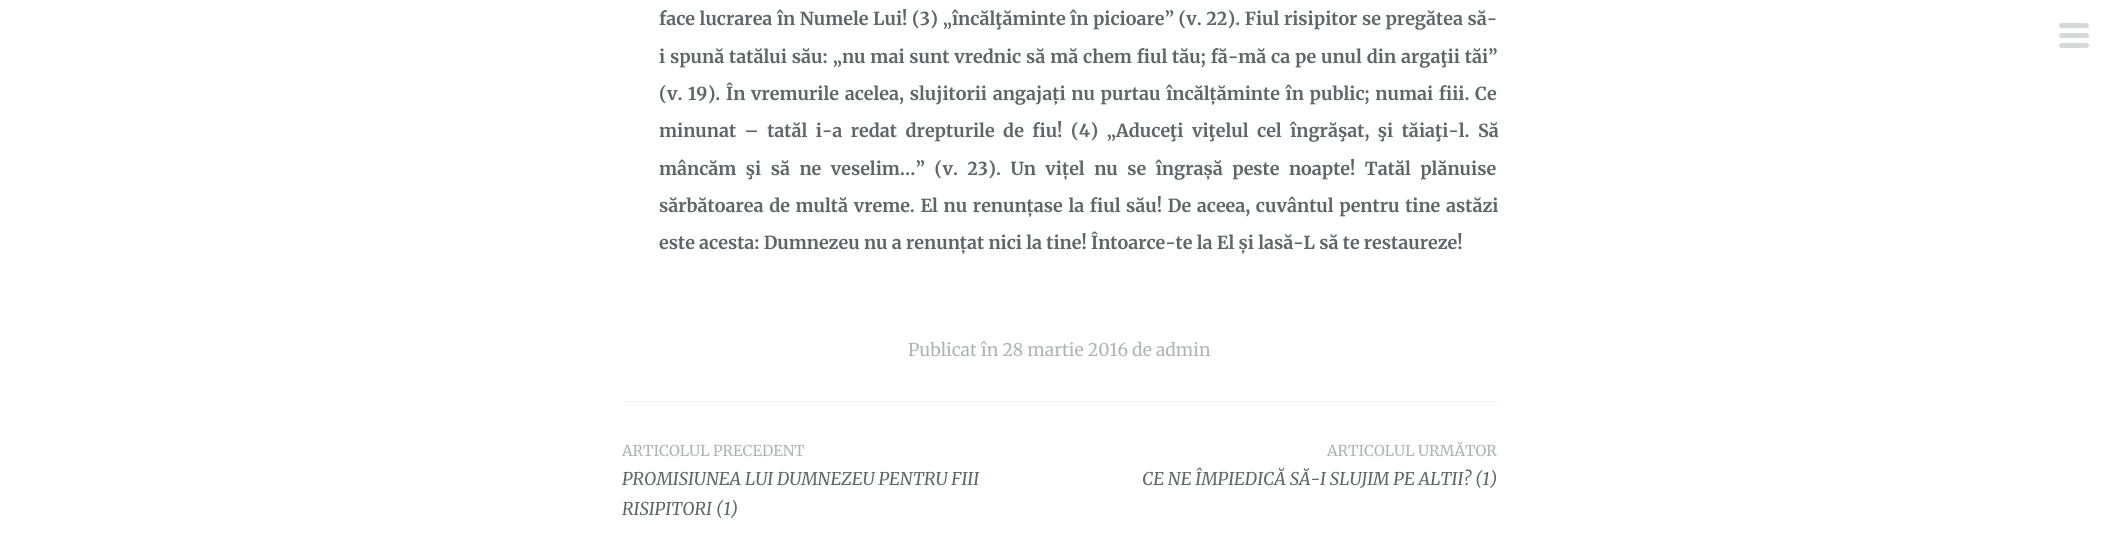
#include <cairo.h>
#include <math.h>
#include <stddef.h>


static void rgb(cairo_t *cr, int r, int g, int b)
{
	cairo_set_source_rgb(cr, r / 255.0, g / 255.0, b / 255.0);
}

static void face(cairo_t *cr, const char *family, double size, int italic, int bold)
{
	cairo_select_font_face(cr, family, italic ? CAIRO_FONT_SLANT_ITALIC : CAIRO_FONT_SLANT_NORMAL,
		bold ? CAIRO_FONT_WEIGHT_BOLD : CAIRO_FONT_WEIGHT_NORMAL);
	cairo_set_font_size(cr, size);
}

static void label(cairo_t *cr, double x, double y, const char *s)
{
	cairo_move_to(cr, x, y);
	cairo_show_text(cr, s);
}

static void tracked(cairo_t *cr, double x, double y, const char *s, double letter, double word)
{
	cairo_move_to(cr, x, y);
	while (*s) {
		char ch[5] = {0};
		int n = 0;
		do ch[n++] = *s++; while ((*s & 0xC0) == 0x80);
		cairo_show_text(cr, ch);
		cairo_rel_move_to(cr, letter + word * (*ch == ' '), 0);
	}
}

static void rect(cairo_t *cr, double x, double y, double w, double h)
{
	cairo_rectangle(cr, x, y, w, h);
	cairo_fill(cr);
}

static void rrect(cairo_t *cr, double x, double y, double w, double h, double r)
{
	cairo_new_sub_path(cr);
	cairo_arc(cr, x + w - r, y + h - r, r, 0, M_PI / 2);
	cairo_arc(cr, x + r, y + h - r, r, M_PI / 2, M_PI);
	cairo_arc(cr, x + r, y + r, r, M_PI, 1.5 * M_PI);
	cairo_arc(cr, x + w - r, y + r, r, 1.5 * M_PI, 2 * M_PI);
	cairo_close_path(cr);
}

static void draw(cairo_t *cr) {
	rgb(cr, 255, 255, 255);
	cairo_paint(cr);
	face(cr, "Merriweather", 17.9, 0, 1);
	rgb(cr, 96, 102, 102);
	tracked(cr, 659, 25, "face lucrarea în Numele Lui! (3) „încălţăminte în picioare” (v. 22). Fiul risipitor se pregătea să-", 0, 0.3);
	tracked(cr, 659, 63, "i spună tatălui său: „nu mai sunt vrednic să mă chem fiul tău; fă-mă ca pe unul din argaţii tăi”", 0, 0.6);
	tracked(cr, 659, 100, "(v. 19). În vremurile acelea, slujitorii angajați nu purtau încălțăminte în public; numai fiii. Ce", 0, 1.5);
	tracked(cr, 659, 137, "minunat – tatăl i-a redat drepturile de fiu! (4) „Aduceţi viţelul cel îngrăşat, şi tăiaţi-l. Să", 0, 4.25);
	tracked(cr, 659, 175, "mâncăm şi să ne veselim…” (v. 23). Un vițel nu se îngrașă peste noapte! Tatăl plănuise", 0, 5.25);
	tracked(cr, 659, 212, "sărbătoarea de multă vreme. El nu renunțase la fiul său! De aceea, cuvântul pentru tine astăzi", 0, 1.4);
	label(cr, 659, 249, "este acesta: Dumnezeu nu a renunțat nici la tine! Întoarce-te la El și lasă-L să te restaureze!");
	face(cr, "Merriweather", 17.5, 0, 0);
	rgb(cr, 176, 179, 179);
	label(cr, 908, 356, "Publicat în 28 martie 2016 de admin");
	rgb(cr, 241, 243, 244);
	rect(cr, 623, 401, 875, 1);
	face(cr, "Merriweather", 15, 0, 0);
	rgb(cr, 176, 179, 179);
	label(cr, 622, 456, "ARTICOLUL PRECEDENT");
	face(cr, "Merriweather", 17.5, 1, 0);
	rgb(cr, 96, 102, 102);
	label(cr, 622, 485, "PROMISIUNEA LUI DUMNEZEU PENTRU FIII");
	label(cr, 622, 515, "RISIPITORI (1)");
	face(cr, "Merriweather", 15, 0, 0);
	rgb(cr, 176, 179, 179);
	label(cr, 1327, 456, "ARTICOLUL URMĂTOR");
	face(cr, "Merriweather", 17.5, 1, 0);
	rgb(cr, 96, 102, 102);
	label(cr, 1142, 485, "CE NE ÎMPIEDICĂ SĂ-I SLUJIM PE ALTII? (1)");
	rgb(cr, 215, 217, 217);
	rrect(cr, 2059, 33, 30, 5, 2.5);
	cairo_fill(cr);
	rrect(cr, 2059, 23, 30, 5, 2.5);
	cairo_fill(cr);
	rrect(cr, 2059, 43, 30, 5, 2.5);
	cairo_fill(cr);
}

int main(void) {
	cairo_surface_t *surface = cairo_image_surface_create(CAIRO_FORMAT_RGB24, 2118, 540);
	cairo_t *cr = cairo_create(surface);
	cairo_font_options_t *options = cairo_font_options_create();
	cairo_font_options_set_hint_metrics(options, CAIRO_HINT_METRICS_OFF);
	cairo_font_options_set_hint_style(options, CAIRO_HINT_STYLE_NONE);
	cairo_set_font_options(cr, options);
	cairo_set_miter_limit(cr, 4);
	draw(cr);
	cairo_surface_write_to_png(surface, "render.png");
	cairo_font_options_destroy(options);
	cairo_destroy(cr);
	cairo_surface_destroy(surface);
	return 0;
}
